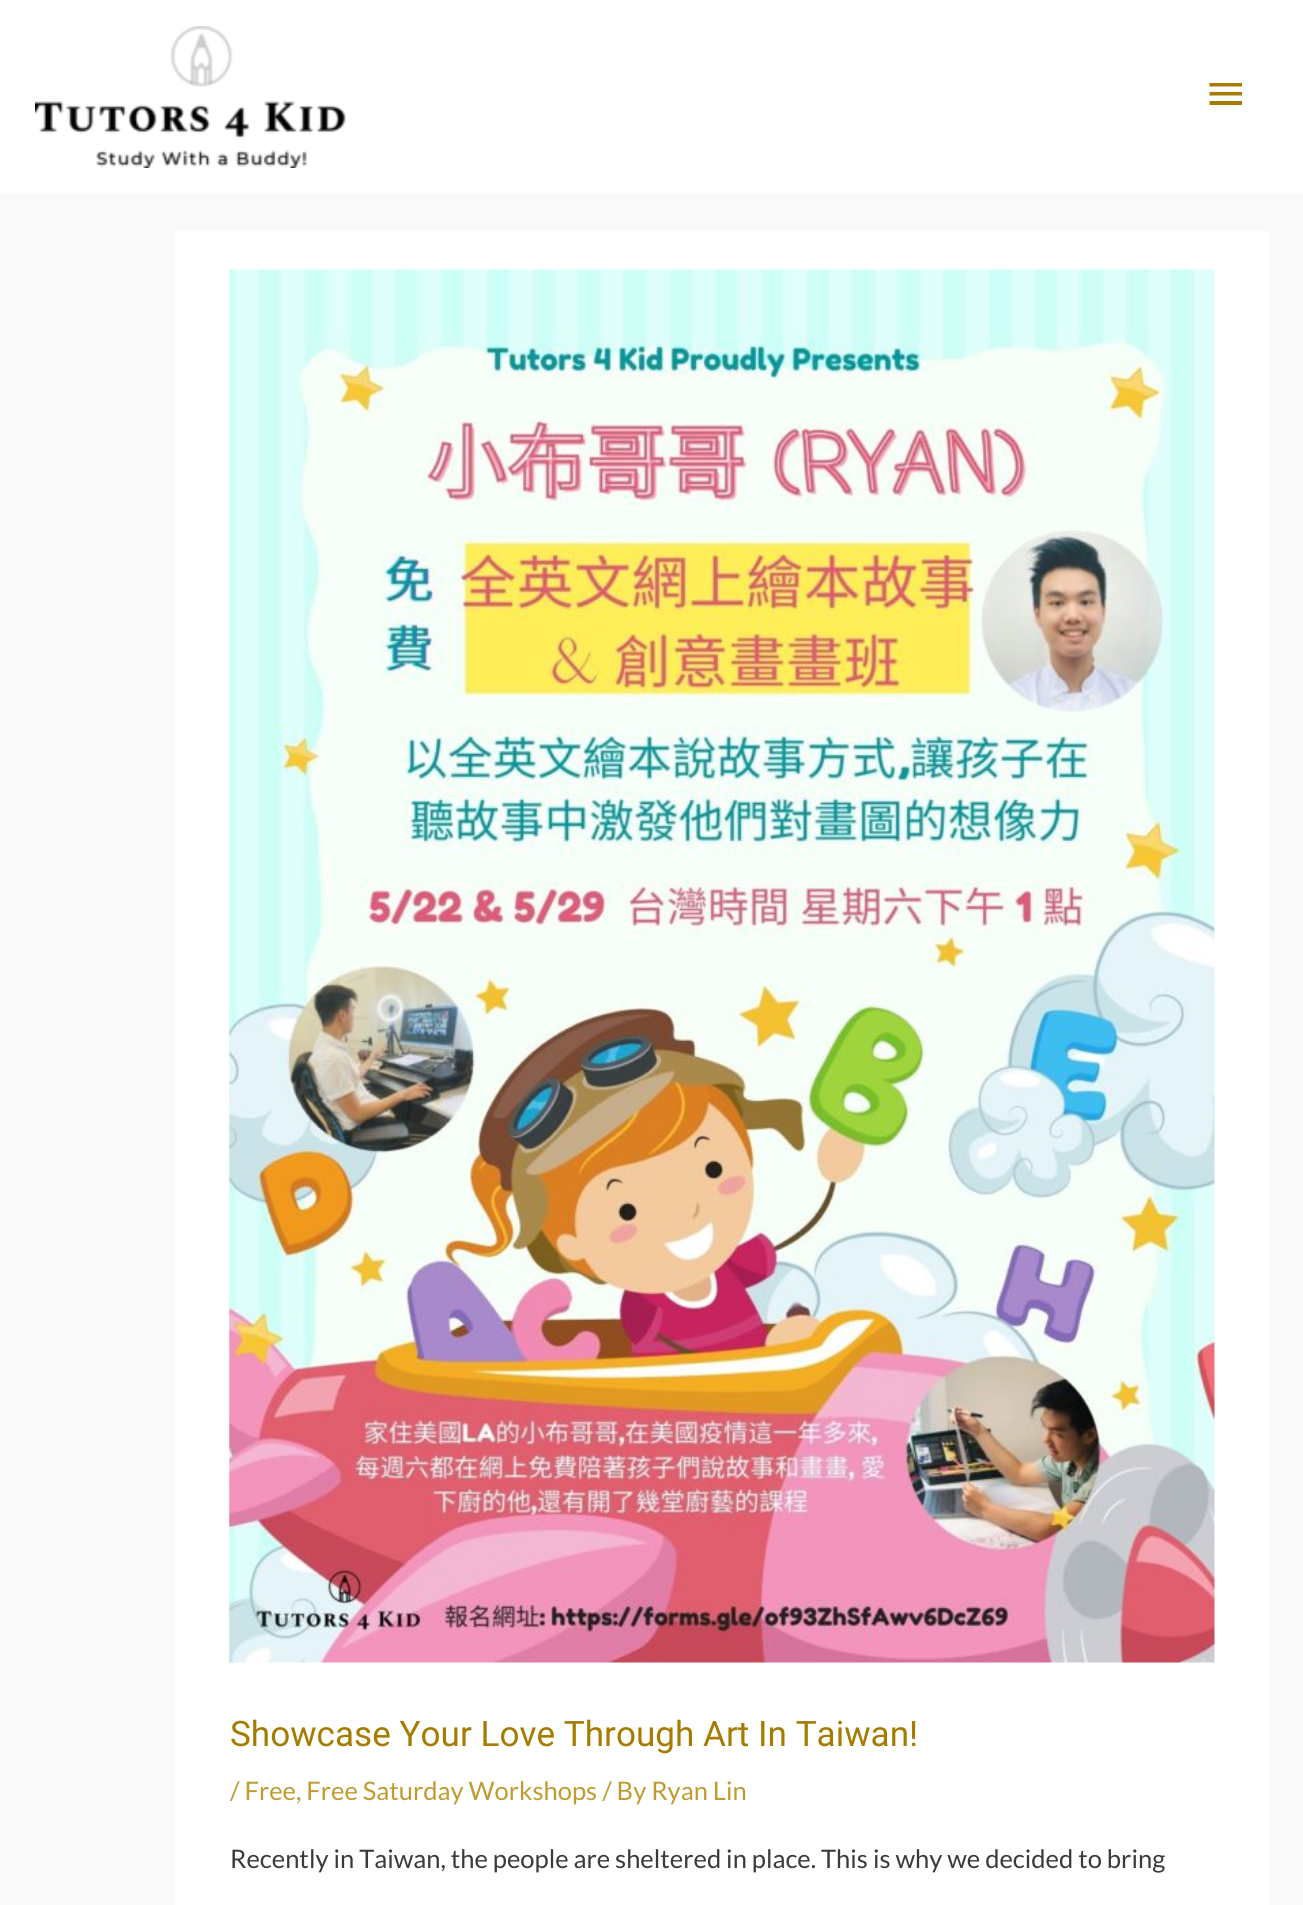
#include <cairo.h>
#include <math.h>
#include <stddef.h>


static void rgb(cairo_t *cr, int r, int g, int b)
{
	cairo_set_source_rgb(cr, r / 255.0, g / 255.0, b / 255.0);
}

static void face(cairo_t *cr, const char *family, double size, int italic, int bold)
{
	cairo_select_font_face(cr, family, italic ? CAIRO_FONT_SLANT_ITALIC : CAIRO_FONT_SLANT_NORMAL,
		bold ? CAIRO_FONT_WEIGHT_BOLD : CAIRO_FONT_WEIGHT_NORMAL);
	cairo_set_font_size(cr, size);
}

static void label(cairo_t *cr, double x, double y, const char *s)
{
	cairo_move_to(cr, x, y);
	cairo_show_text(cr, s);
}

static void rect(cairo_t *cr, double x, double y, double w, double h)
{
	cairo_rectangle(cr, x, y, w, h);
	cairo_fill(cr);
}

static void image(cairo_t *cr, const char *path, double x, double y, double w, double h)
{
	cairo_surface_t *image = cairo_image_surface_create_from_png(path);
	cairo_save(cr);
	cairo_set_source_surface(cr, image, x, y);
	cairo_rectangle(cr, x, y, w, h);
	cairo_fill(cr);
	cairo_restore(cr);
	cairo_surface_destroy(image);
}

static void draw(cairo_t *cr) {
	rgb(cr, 250, 250, 250);
	cairo_paint(cr);
	rgb(cr, 255, 255, 255);
	rect(cr, 0, 0, 1303, 193);
	image(cr, "image0.png", 35, 26, 311, 142);
	rgb(cr, 166, 124, 0);
	cairo_new_path(cr);
	cairo_move_to(cr, 1209.5, 83);
	cairo_line_to(cr, 1242, 83);
	cairo_line_to(cr, 1242, 86.5);
	cairo_line_to(cr, 1209.5, 86.5);
	cairo_close_path(cr);
	cairo_move_to(cr, 1209.5, 95.5);
	cairo_line_to(cr, 1209.5, 92);
	cairo_line_to(cr, 1242, 92);
	cairo_line_to(cr, 1242, 95.5);
	cairo_close_path(cr);
	cairo_move_to(cr, 1209.5, 105);
	cairo_line_to(cr, 1209.5, 101);
	cairo_line_to(cr, 1242, 101);
	cairo_line_to(cr, 1242, 105);
	cairo_close_path(cr);
	cairo_fill(cr);
	rgb(cr, 255, 255, 255);
	rect(cr, 175, 231, 1094, 1674);
	image(cr, "image1.png", 229, 269, 986, 1394);
	face(cr, "Roboto", 35.1, 0, 0);
	rgb(cr, 166, 124, 0);
	label(cr, 230, 1746, "Showcase Your Love Through Art In Taiwan!");
	face(cr, "Lato", 25.55, 0, 0);
	rgb(cr, 191, 155, 48);
	label(cr, 230, 1800, "/ Free, Free Saturday Workshops / By Ryan Lin");
	rgb(cr, 58, 58, 58);
	label(cr, 230, 1868, "Recently in Taiwan, the people are sheltered in place. This is why we decided to bring");
}

int main(void) {
	cairo_surface_t *surface = cairo_image_surface_create(CAIRO_FORMAT_RGB24, 1303, 1905);
	cairo_t *cr = cairo_create(surface);
	cairo_font_options_t *options = cairo_font_options_create();
	cairo_font_options_set_hint_metrics(options, CAIRO_HINT_METRICS_OFF);
	cairo_font_options_set_hint_style(options, CAIRO_HINT_STYLE_NONE);
	cairo_set_font_options(cr, options);
	cairo_set_miter_limit(cr, 4);
	draw(cr);
	cairo_surface_write_to_png(surface, "render.png");
	cairo_font_options_destroy(options);
	cairo_destroy(cr);
	cairo_surface_destroy(surface);
	return 0;
}
